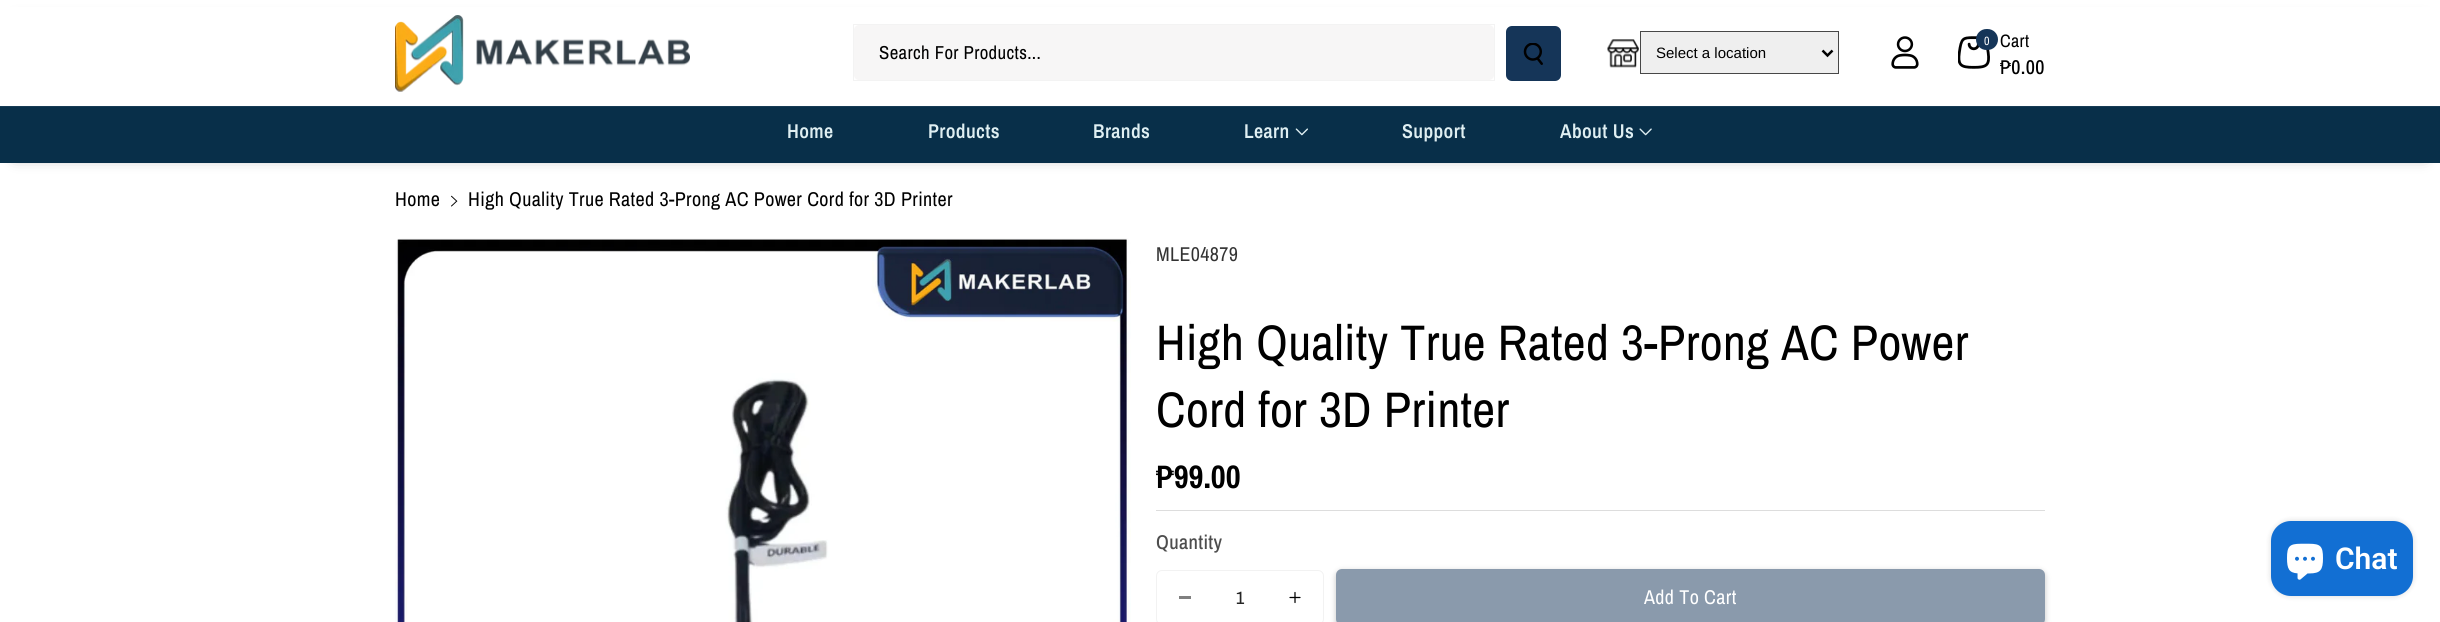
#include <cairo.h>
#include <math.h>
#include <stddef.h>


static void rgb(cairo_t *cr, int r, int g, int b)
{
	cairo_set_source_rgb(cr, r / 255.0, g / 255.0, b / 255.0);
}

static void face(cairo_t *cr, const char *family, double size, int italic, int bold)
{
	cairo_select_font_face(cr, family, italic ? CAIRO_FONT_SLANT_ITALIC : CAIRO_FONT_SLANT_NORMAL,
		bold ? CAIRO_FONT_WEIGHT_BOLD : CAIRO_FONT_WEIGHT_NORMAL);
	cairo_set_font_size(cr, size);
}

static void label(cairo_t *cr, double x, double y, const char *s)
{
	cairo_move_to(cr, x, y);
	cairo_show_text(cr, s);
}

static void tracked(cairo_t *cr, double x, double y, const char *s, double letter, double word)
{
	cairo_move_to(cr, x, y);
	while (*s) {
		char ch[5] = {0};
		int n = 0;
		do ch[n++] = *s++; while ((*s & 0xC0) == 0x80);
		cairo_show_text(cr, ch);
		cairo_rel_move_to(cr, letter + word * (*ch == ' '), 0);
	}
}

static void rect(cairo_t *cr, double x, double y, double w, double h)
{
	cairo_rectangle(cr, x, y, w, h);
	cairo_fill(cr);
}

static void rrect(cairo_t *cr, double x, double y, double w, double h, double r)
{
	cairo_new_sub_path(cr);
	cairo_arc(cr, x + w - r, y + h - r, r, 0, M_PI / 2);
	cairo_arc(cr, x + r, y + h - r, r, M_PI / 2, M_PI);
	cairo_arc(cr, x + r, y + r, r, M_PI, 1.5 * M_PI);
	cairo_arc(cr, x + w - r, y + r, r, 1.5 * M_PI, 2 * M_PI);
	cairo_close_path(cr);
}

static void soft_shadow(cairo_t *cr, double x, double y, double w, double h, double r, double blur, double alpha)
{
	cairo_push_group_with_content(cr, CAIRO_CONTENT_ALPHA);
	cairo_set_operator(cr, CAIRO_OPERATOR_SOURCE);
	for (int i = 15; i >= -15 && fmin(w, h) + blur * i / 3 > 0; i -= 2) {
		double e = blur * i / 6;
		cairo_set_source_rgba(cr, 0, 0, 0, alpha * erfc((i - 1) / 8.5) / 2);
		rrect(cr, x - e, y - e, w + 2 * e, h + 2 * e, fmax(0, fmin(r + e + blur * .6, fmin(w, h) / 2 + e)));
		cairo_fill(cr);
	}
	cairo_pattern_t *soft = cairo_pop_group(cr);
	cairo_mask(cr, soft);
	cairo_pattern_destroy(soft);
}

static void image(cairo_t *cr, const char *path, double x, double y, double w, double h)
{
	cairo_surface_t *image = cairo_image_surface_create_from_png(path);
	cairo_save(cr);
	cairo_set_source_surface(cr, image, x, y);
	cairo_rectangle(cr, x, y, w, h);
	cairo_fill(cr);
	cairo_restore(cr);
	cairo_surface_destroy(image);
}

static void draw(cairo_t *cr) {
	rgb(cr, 255, 255, 255);
	cairo_paint(cr);
	rgb(cr, 18, 18, 18);
	soft_shadow(cr, 15, 23, 2410, 132, 0, 7.5, 0.6);
	rgb(cr, 255, 255, 255);
	rect(cr, 0, 7, 2440, 99);
	image(cr, "image0.png", 395, 15, 295, 77);
	rgb(cr, 247, 246, 246);
	rrect(cr, 854, 25, 640, 55, 5);
	cairo_fill(cr);
	cairo_rectangle(cr, 853.5, 24.5, 641, 56);
	cairo_set_source_rgba(cr, 0, 0, 0, 0.05);
	cairo_set_line_width(cr, 1);
	cairo_stroke(cr);
	face(cr, "Archivo Narrow", 18.75, 0, 0);
	rgb(cr, 0, 0, 0);
	tracked(cr, 879, 59, "Search For Products...", 0.38, 0);
	rgb(cr, 21, 53, 88);
	rrect(cr, 1506, 26, 55, 55, 6);
	cairo_fill(cr);
	image(cr, "image1.png", 1523, 43, 20, 22);
	image(cr, "image2.png", 1607, 39, 32, 29);
	rgb(cr, 239, 239, 239);
	cairo_rectangle(cr, 1640.5, 31.5, 198, 42);
	cairo_fill_preserve(cr);
	rgb(cr, 71, 71, 71);
	cairo_stroke(cr);
	cairo_new_path(cr);
	cairo_move_to(cr, 1822.5, 50.5);
	cairo_line_to(cr, 1827.5, 55.5);
	cairo_line_to(cr, 1832.5, 50.5);
	rgb(cr, 0, 0, 0);
	cairo_set_line_width(cr, 2.5);
	cairo_stroke(cr);
	face(cr, "Liberation Sans", 15, 0, 0);
	label(cr, 1656, 58, "Select a location");
	image(cr, "image3.png", 1891, 36, 28, 33);
	image(cr, "image4.png", 1958, 36, 32, 33);
	face(cr, "Archivo Narrow", 18, 0, 0);
	tracked(cr, 2000, 47, "Cart", 0.38, 0);
	face(cr, "Archivo Narrow Medium", 20, 0, 0);
	tracked(cr, 2000, 74, "₱0.00", 0.38, 0);
	rgb(cr, 21, 53, 88);
	rrect(cr, 1976, 29, 22, 21, 10.5);
	cairo_fill(cr);
	face(cr, "Archivo Narrow", 12, 0, 0);
	rgb(cr, 255, 255, 255);
	tracked(cr, 1984, 45, "0", 0.38, 0);
	rgb(cr, 8, 47, 73);
	rect(cr, 0, 107, 2440, 56);
	rgb(cr, 23, 60, 85);
	rect(cr, 0, 106, 2440, 1);
	face(cr, "Archivo Narrow SemiBold", 20, 0, 0);
	rgb(cr, 223, 239, 242);
	tracked(cr, 787, 138, "Home", 0.38, 0);
	tracked(cr, 928, 138, "Products", 0.38, 0);
	tracked(cr, 1093, 138, "Brands", 0.38, 0);
	tracked(cr, 1244, 138, "Learn", 0.38, 0);
	image(cr, "image5.png", 1295, 128, 13, 8);
	tracked(cr, 1402, 138, "Support", 0.38, 0);
	tracked(cr, 1560, 138, "About Us", 0.38, 0);
	image(cr, "image6.png", 1639, 128, 13, 8);
	face(cr, "Archivo Narrow", 20, 0, 0);
	rgb(cr, 0, 0, 0);
	tracked(cr, 395, 206, "Home", 0.38, 0);
	image(cr, "image7.png", 451, 195, 7, 12);
	tracked(cr, 468, 206, "High Quality True Rated 3-Prong AC Power Cord for 3D Printer", 0.38, 0);
	image(cr, "image8.png", 395, 238, 736, 384);
	rgb(cr, 51, 51, 51);
	tracked(cr, 1156, 261, "MLE04879", 0.38, 0);
	face(cr, "Archivo Narrow", 50, 0, 0);
	rgb(cr, 0, 0, 0);
	tracked(cr, 1156, 360, "High Quality True Rated 3-Prong AC Power", 0.38, 0);
	tracked(cr, 1156, 427, "Cord for 3D Printer", 0.38, 0);
	face(cr, "Archivo Narrow", 32.5, 0, 1);
	label(cr, 1156, 488, "₱99.00");
	rgb(cr, 221, 221, 221);
	rect(cr, 1156, 510, 889, 1);
	face(cr, "Archivo Narrow Medium", 20, 0, 0);
	rgb(cr, 77, 77, 77);
	tracked(cr, 1156, 549, "Quantity", 0.38, 0);
	rgb(cr, 128, 128, 128);
	rect(cr, 1179, 596, 12, 3);
	image(cr, "image9.png", 1289, 591, 12, 13);
	rrect(cr, 1156.5, 570.5, 167, 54, 5.5);
	rgb(cr, 242, 242, 242);
	cairo_set_line_width(cr, 1);
	cairo_stroke(cr);
	face(cr, "Archivo Narrow Medium", 18, 0, 0);
	rgb(cr, 38, 38, 38);
	label(cr, 1236, 604, "1");
	rgb(cr, 137, 137, 137);
	soft_shadow(cr, 1336, 571, 709, 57, 6, 3, 0.5);
	rgb(cr, 138, 154, 172);
	rrect(cr, 1336, 569, 709, 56, 6);
	cairo_fill(cr);
	face(cr, "Archivo Narrow", 20, 0, 0);
	rgb(cr, 255, 255, 255);
	tracked(cr, 1644, 604, "Add To Cart", 0.38, 0);
	rgb(cr, 0, 0, 0);
	soft_shadow(cr, 2271, 521, 142, 75, 20, 3, 0.15);
	rgb(cr, 18, 111, 211);
	rrect(cr, 2271, 521, 142, 75, 20);
	cairo_fill(cr);
	image(cr, "image10.png", 2287, 543, 36, 37);
	face(cr, "Roboto SemiBold", 30, 0, 0);
	rgb(cr, 255, 255, 255);
	label(cr, 2335, 569, "Chat");
}

int main(void) {
	cairo_surface_t *surface = cairo_image_surface_create(CAIRO_FORMAT_RGB24, 2440, 622);
	cairo_t *cr = cairo_create(surface);
	cairo_font_options_t *options = cairo_font_options_create();
	cairo_font_options_set_hint_metrics(options, CAIRO_HINT_METRICS_OFF);
	cairo_font_options_set_hint_style(options, CAIRO_HINT_STYLE_NONE);
	cairo_set_font_options(cr, options);
	cairo_set_miter_limit(cr, 4);
	draw(cr);
	cairo_surface_write_to_png(surface, "render.png");
	cairo_font_options_destroy(options);
	cairo_destroy(cr);
	cairo_surface_destroy(surface);
	return 0;
}
